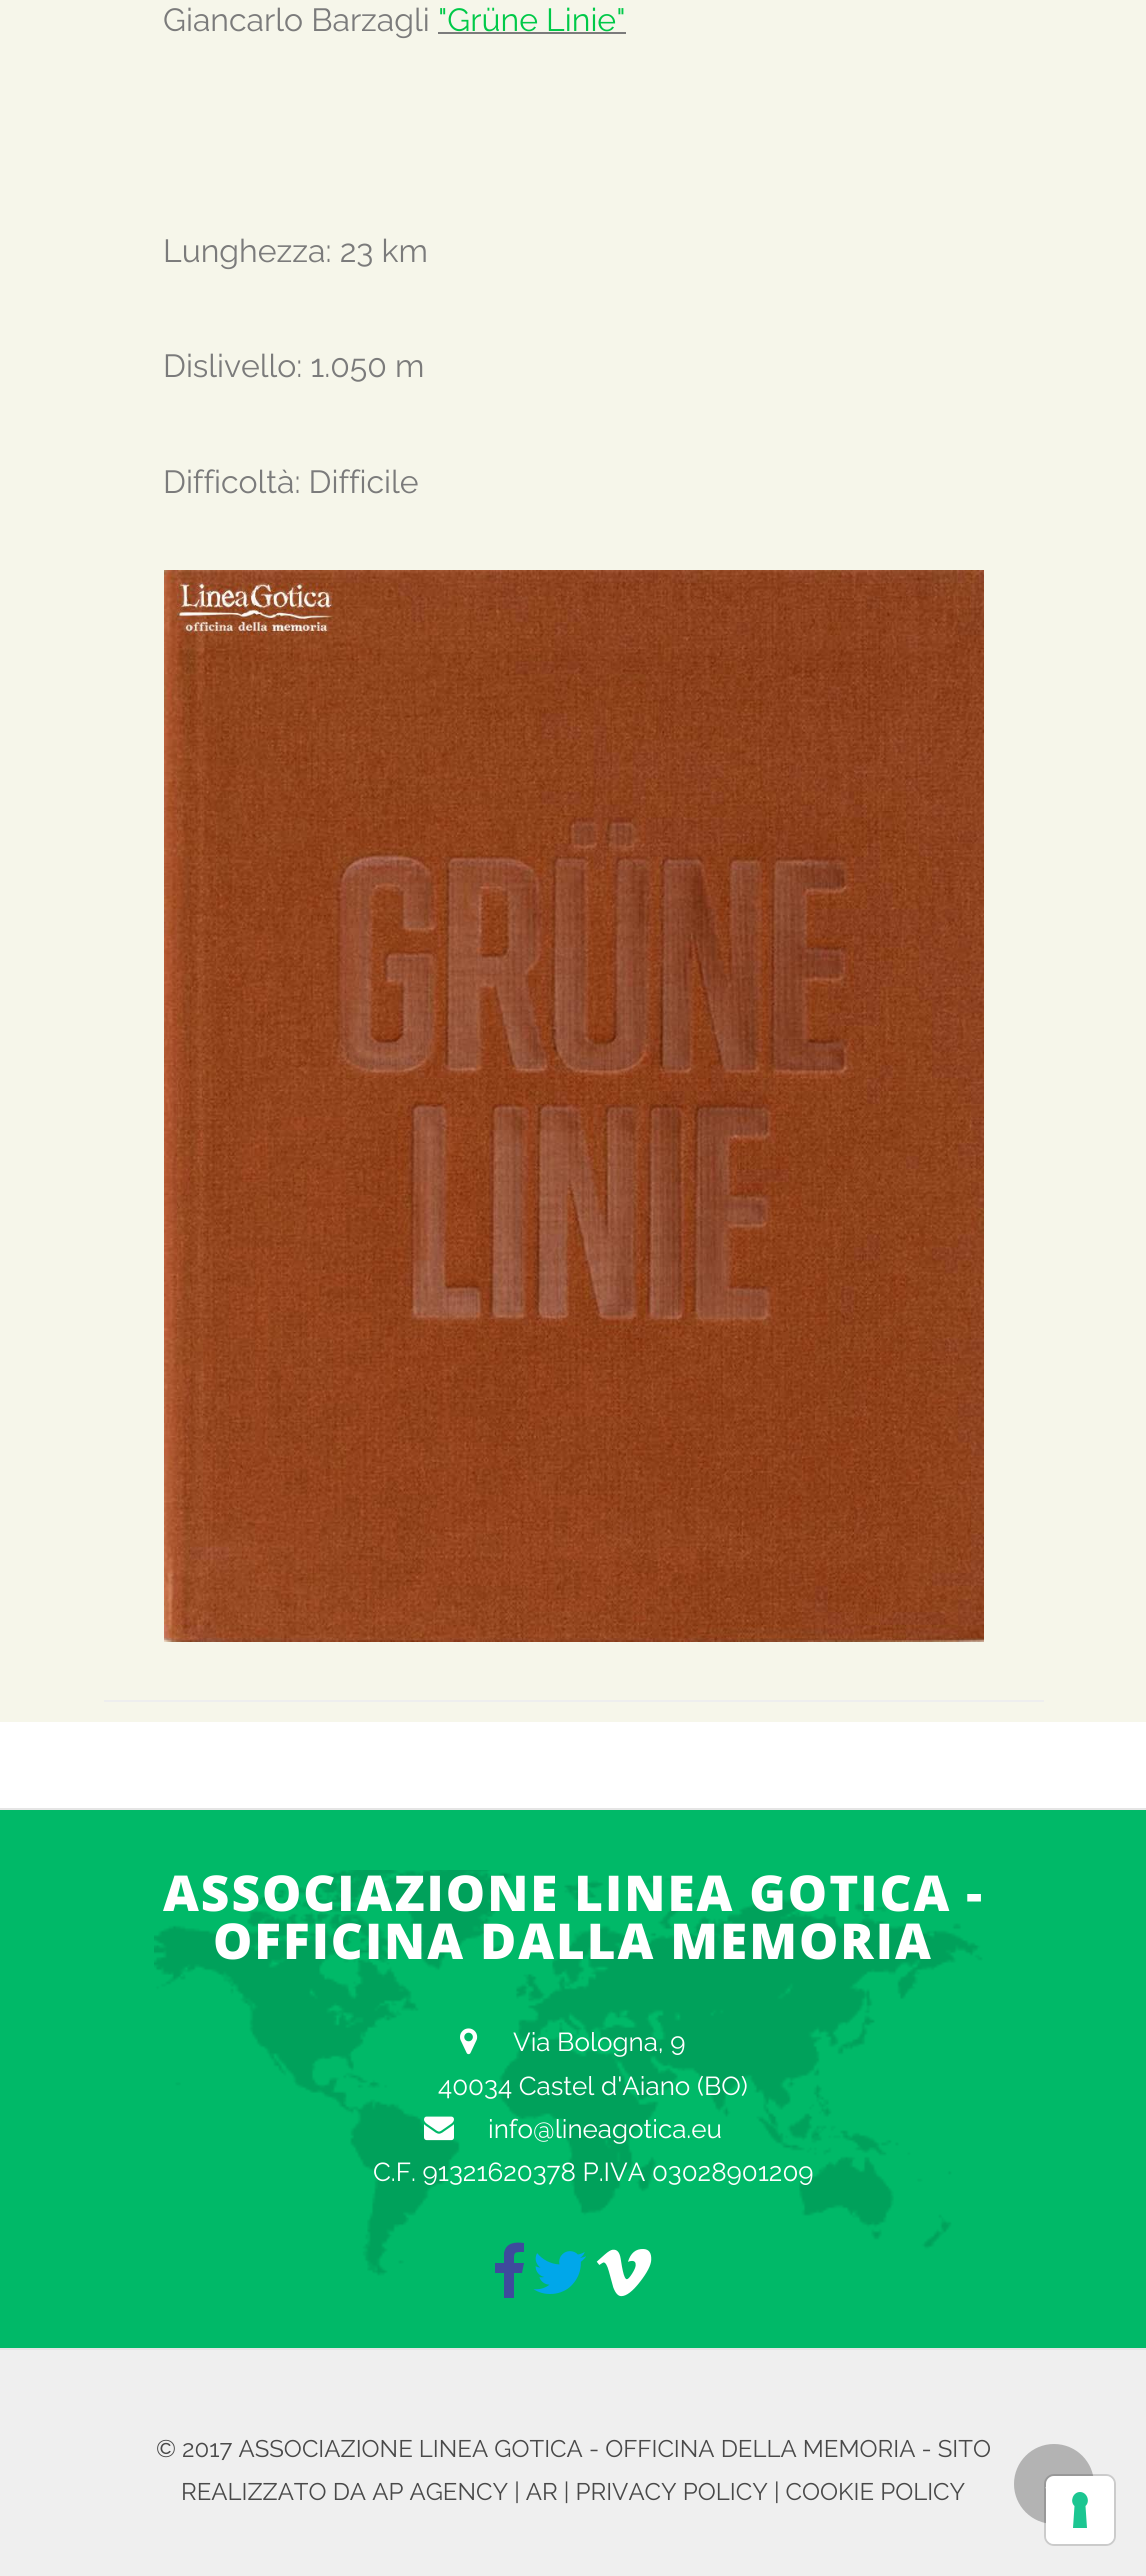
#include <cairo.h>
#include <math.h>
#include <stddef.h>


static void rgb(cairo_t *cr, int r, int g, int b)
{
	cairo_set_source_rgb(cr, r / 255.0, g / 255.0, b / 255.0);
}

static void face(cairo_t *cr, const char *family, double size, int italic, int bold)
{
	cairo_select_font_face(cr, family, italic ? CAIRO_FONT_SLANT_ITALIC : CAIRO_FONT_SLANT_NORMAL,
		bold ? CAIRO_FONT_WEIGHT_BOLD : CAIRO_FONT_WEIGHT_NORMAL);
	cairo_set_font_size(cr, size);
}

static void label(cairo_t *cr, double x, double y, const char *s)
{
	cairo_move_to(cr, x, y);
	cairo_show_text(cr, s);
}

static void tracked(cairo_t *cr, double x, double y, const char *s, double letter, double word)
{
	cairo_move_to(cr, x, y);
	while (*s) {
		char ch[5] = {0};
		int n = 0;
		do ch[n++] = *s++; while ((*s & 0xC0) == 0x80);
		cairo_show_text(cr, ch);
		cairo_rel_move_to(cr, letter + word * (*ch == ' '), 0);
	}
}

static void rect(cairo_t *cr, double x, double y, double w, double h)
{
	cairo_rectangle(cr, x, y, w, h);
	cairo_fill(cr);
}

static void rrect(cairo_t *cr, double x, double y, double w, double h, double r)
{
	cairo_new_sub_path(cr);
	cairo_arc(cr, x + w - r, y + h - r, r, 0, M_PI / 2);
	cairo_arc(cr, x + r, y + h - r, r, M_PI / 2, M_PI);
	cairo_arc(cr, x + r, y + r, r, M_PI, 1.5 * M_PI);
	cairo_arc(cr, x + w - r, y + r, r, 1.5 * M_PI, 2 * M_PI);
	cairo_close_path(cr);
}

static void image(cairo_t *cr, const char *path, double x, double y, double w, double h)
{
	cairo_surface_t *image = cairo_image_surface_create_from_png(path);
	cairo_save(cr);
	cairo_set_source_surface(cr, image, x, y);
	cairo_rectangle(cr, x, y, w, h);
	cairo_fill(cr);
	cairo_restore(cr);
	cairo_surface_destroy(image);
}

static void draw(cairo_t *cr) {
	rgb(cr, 255, 255, 255);
	cairo_paint(cr);
	rgb(cr, 246, 246, 234);
	rect(cr, 0, 0, 1146, 1722);
	face(cr, "Raleway Thin", 32, 0, 0);
	rgb(cr, 123, 123, 123);
	label(cr, 163, 31, "Giancarlo Barzagli");
	rgb(cr, 0, 201, 72);
	label(cr, 438, 31, "\"Grüne Linie\"");
	rgb(cr, 123, 123, 123);
	rect(cr, 438, 32, 188, 2);
	label(cr, 163, 262, "Lunghezza: 23 km");
	label(cr, 163, 377, "Dislivello: 1.050 m");
	label(cr, 163, 493, "Difficoltà: Difficile");
	image(cr, "image0.png", 164, 570, 820, 1072);
	rgb(cr, 238, 238, 238);
	rect(cr, 104, 1700, 940, 2);
	rgb(cr, 229, 229, 229);
	rect(cr, 0, 1808, 1146, 2);
	rgb(cr, 0, 185, 104);
	rect(cr, 0, 1810, 1146, 538);
	image(cr, "image1.png", 154, 1870, 829, 406);
	face(cr, "Open Sans ExtraBold", 49.4, 0, 0);
	rgb(cr, 255, 255, 255);
	tracked(cr, 163, 1911, "ASSOCIAZIONE LINEA GOTICA -", 2, 0);
	tracked(cr, 213, 1959, "OFFICINA DALLA MEMORIA", 2, 0);
	image(cr, "image2.png", 460, 2028, 18, 27);
	face(cr, "Raleway Thin", 26, 0, 0);
	label(cr, 513, 2051, "Via Bologna, 9");
	label(cr, 438, 2095, "40034 Castel d'Aiano (BO)");
	image(cr, "image3.png", 424, 2116, 30, 25);
	label(cr, 488, 2138, "info@lineagotica.eu");
	label(cr, 373, 2181, "C.F. 91321620378 P.IVA 03028901209");
	rgb(cr, 62, 75, 156);
	cairo_new_path(cr);
	cairo_move_to(cr, 524, 2243);
	cairo_line_to(cr, 524, 2252);
	cairo_curve_to(cr, 513, 2252, 514, 2252, 514, 2263);
	cairo_line_to(cr, 524, 2263);
	cairo_line_to(cr, 522, 2273);
	cairo_line_to(cr, 514, 2273);
	cairo_line_to(cr, 514, 2298);
	cairo_line_to(cr, 504, 2298);
	cairo_line_to(cr, 504, 2273);
	cairo_line_to(cr, 495, 2273);
	cairo_line_to(cr, 495, 2263);
	cairo_line_to(cr, 504, 2263);
	cairo_line_to(cr, 504, 2253);
	cairo_curve_to(cr, 506, 2242, 516, 2242, 524, 2243);
	cairo_close_path(cr);
	cairo_fill(cr);
	image(cr, "image4.png", 533, 2251, 53, 43);
	image(cr, "image5.png", 596, 2249, 56, 48);
	rgb(cr, 239, 239, 239);
	rect(cr, 0, 2350, 1146, 226);
	rgb(cr, 229, 229, 229);
	rect(cr, 0, 2348, 1146, 2);
	face(cr, "Raleway Thin", 24, 0, 0);
	rgb(cr, 73, 73, 73);
	label(cr, 156, 2457, "© 2017 ASSOCIAZIONE LINEA GOTICA - OFFICINA DELLA MEMORIA - SITO");
	label(cr, 181, 2500, "REALIZZATO DA AP AGENCY | AR | PRIVACY POLICY | COOKIE POLICY");
	rgb(cr, 179, 179, 179);
	cairo_new_path(cr);
	cairo_arc(cr, 1054, 2484, 40, 0, 2 * M_PI);
	cairo_fill(cr);
	image(cr, "image6.png", 1045, 2487, 1, 2);
	rrect(cr, 1045, 2475, 70, 70, 9);
	cairo_set_source_rgba(cr, 0, 0, 0, 0.15);
	cairo_stroke(cr);
	rgb(cr, 255, 255, 255);
	rrect(cr, 1046, 2476, 68, 68, 8);
	cairo_fill(cr);
	rgb(cr, 28, 198, 145);
	cairo_set_fill_rule(cr, CAIRO_FILL_RULE_EVEN_ODD);
	cairo_new_path(cr);
	cairo_move_to(cr, 1080, 2492);
	cairo_curve_to(cr, 1087, 2492, 1090.5, 2501.5, 1085.5, 2506);
	cairo_line_to(cr, 1087, 2528);
	cairo_line_to(cr, 1073, 2528);
	cairo_line_to(cr, 1074.5, 2506);
	cairo_curve_to(cr, 1069.5, 2501.5, 1073, 2492, 1080, 2492);
	cairo_close_path(cr);
	cairo_fill(cr);
}

int main(void) {
	cairo_surface_t *surface = cairo_image_surface_create(CAIRO_FORMAT_RGB24, 1146, 2576);
	cairo_t *cr = cairo_create(surface);
	cairo_font_options_t *options = cairo_font_options_create();
	cairo_font_options_set_hint_metrics(options, CAIRO_HINT_METRICS_OFF);
	cairo_font_options_set_hint_style(options, CAIRO_HINT_STYLE_NONE);
	cairo_set_font_options(cr, options);
	cairo_set_miter_limit(cr, 4);
	draw(cr);
	cairo_surface_write_to_png(surface, "render.png");
	cairo_font_options_destroy(options);
	cairo_destroy(cr);
	cairo_surface_destroy(surface);
	return 0;
}
